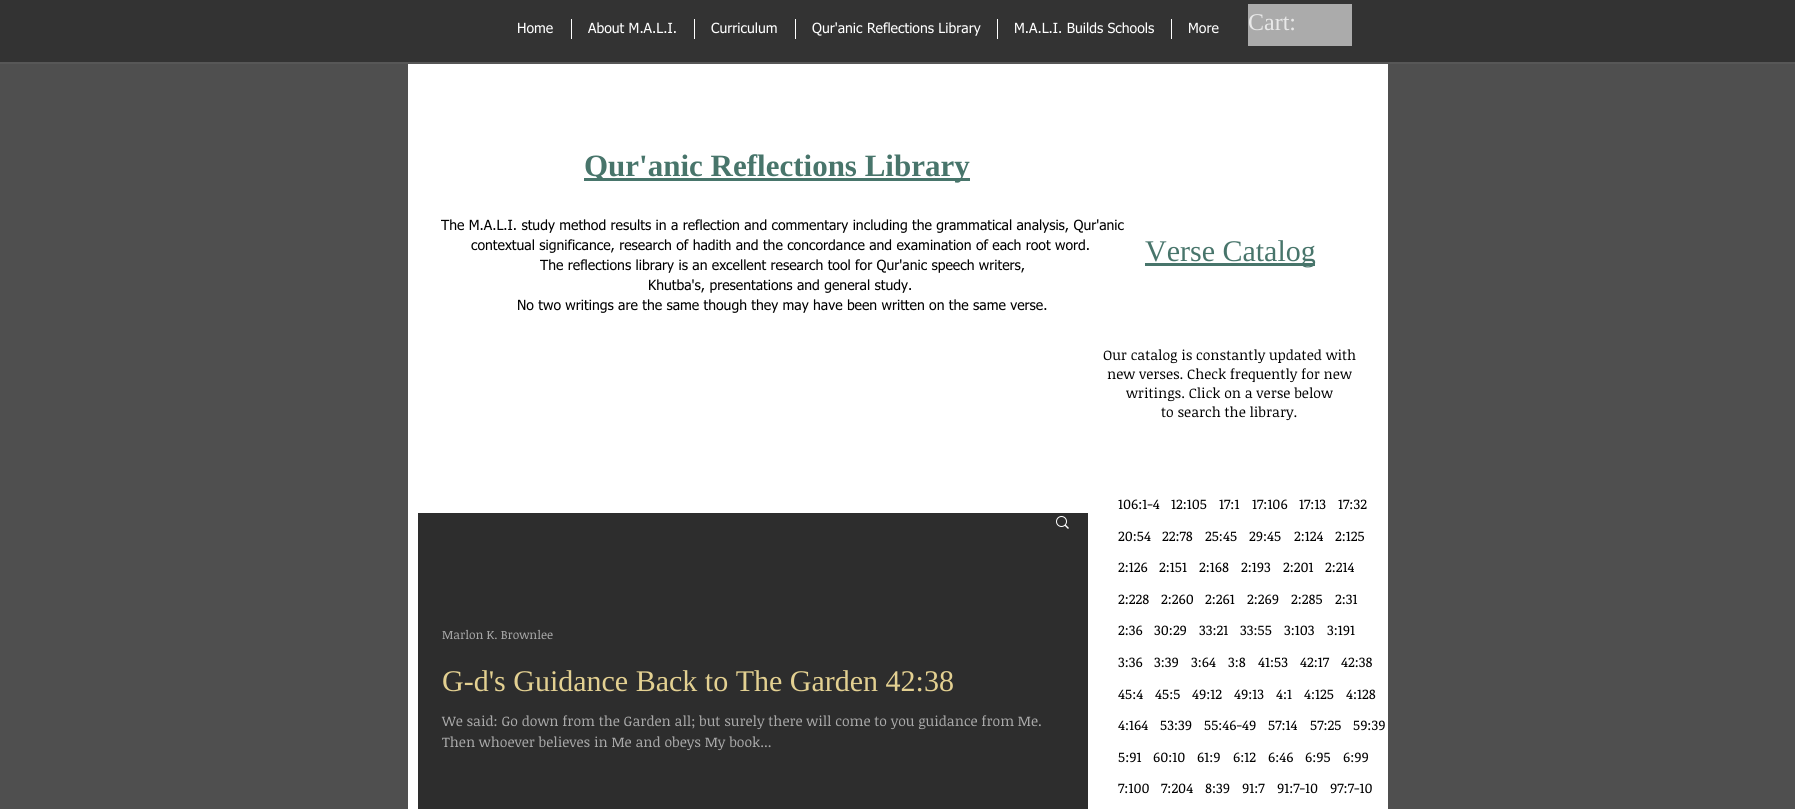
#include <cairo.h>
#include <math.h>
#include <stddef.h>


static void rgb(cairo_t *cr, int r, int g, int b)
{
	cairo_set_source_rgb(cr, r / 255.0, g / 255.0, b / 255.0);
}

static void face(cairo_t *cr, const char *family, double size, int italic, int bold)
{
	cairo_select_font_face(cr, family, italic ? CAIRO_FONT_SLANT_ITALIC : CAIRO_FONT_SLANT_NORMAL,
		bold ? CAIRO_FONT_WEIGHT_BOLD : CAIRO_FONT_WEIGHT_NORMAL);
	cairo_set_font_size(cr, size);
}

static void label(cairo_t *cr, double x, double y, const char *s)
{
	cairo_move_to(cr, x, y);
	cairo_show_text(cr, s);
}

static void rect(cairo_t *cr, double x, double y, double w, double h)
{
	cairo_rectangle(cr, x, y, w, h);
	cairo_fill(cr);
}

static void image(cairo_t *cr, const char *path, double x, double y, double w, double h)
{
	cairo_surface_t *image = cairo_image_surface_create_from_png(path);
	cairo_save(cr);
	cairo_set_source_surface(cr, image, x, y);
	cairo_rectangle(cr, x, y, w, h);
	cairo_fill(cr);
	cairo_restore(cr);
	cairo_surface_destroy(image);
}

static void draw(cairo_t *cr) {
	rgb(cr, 79, 79, 79);
	cairo_paint(cr);
	rgb(cr, 51, 51, 51);
	rect(cr, 0, 0, 1795, 62);
	rgb(cr, 87, 87, 87);
	rect(cr, 0, 62, 1795, 2);
	rgb(cr, 171, 171, 171);
	rect(cr, 1248, 4, 104, 42);
	face(cr, "tahoma", 14, 0, 0);
	rgb(cr, 255, 255, 255);
	label(cr, 517, 33, "Home");
	rect(cr, 571, 19, 1, 20);
	label(cr, 588, 33, "About M.A.L.I.");
	rect(cr, 694, 19, 1, 20);
	label(cr, 711, 33, "Curriculum");
	rect(cr, 795, 19, 1, 20);
	label(cr, 812, 33, "Qur'anic Reflections Library");
	rect(cr, 997, 19, 1, 20);
	label(cr, 1014, 33, "M.A.L.I. Builds Schools");
	rect(cr, 1171, 19, 1, 20);
	label(cr, 1188, 33, "More");
	face(cr, "Liberation Serif", 24, 0, 0);
	rgb(cr, 232, 232, 232);
	label(cr, 1248, 30, "Cart:");
	rgb(cr, 255, 255, 255);
	rect(cr, 408, 64, 980, 745);
	rgb(cr, 72, 117, 107);
	rect(cr, 584, 178, 386, 3);
	face(cr, "Liberation Serif", 31, 0, 1);
	label(cr, 584, 176, "Qur'anic Reflections Library");
	face(cr, "tahoma", 14, 0, 0);
	rgb(cr, 0, 0, 0);
	label(cr, 441, 230, "The M.A.L.I. study method results in a reflection and commentary including the grammatical analysis, Qur'anic");
	label(cr, 471, 250, "contextual significance, research of hadith and the concordance and examination of each root word.");
	label(cr, 540, 270, "The reflections library is an excellent research tool for Qur'anic speech writers,");
	label(cr, 648, 290, "Khutba's, presentations and general study.");
	label(cr, 517, 310, "No two writings are the same though they may have been written on the same verse.");
	rgb(cr, 72, 117, 107);
	rect(cr, 1145, 263, 170, 3);
	face(cr, "Liberation Serif", 30, 0, 0);
	label(cr, 1145, 261, "Verse Catalog");
	face(cr, "Noticia Text", 14, 0, 0);
	rgb(cr, 0, 0, 0);
	label(cr, 1103, 360, "Our catalog is constantly updated with");
	label(cr, 1107, 379, "new verses. Check frequently for new");
	label(cr, 1126, 398, "writings. Click on a verse below");
	label(cr, 1161, 417, "to search the library.");
	rgb(cr, 45, 45, 45);
	rect(cr, 418, 513, 670, 296);
	image(cr, "image0.png", 1056, 516, 13, 13);
	face(cr, "Noticia Text", 12, 0, 0);
	rgb(cr, 171, 171, 171);
	label(cr, 442, 639, "Marlon K. Brownlee");
	face(cr, "Liberation Serif", 30, 0, 0);
	rgb(cr, 227, 208, 145);
	label(cr, 442, 691, "G-d's Guidance Back to The Garden 42:38");
	face(cr, "Noticia Text", 14, 0, 0);
	rgb(cr, 171, 171, 171);
	label(cr, 442, 726, "We said: Go down from the Garden all; but surely there will come to you guidance from Me.");
	cairo_save(cr);
	cairo_rectangle(cr, 442, 710, 622, 42);
	cairo_clip(cr);
	label(cr, 442, 747, "Then whoever believes in Me and obeys My book...");
	cairo_restore(cr);
	rgb(cr, 0, 0, 0);
	label(cr, 1118, 509, "106:1-4");
	label(cr, 1171, 509, "12:105");
	label(cr, 1219, 509, "17:1");
	label(cr, 1252, 509, "17:106");
	label(cr, 1299, 509, "17:13");
	label(cr, 1338, 509, "17:32");
	label(cr, 1118, 541, "20:54");
	label(cr, 1162, 541, "22:78");
	label(cr, 1205, 541, "25:45");
	label(cr, 1249, 541, "29:45");
	label(cr, 1294, 541, "2:124");
	label(cr, 1335, 541, "2:125");
	label(cr, 1118, 572, "2:126");
	label(cr, 1159, 572, "2:151");
	label(cr, 1199, 572, "2:168");
	label(cr, 1241, 572, "2:193");
	label(cr, 1283, 572, "2:201");
	label(cr, 1325, 572, "2:214");
	label(cr, 1118, 604, "2:228");
	label(cr, 1161, 604, "2:260");
	label(cr, 1205, 604, "2:261");
	label(cr, 1247, 604, "2:269");
	label(cr, 1291, 604, "2:285");
	label(cr, 1335, 604, "2:31");
	label(cr, 1118, 635, "2:36");
	label(cr, 1154, 635, "30:29");
	label(cr, 1199, 635, "33:21");
	label(cr, 1240, 635, "33:55");
	label(cr, 1284, 635, "3:103");
	label(cr, 1327, 635, "3:191");
	label(cr, 1118, 667, "3:36");
	label(cr, 1154, 667, "3:39");
	label(cr, 1191, 667, "3:64");
	label(cr, 1228, 667, "3:8");
	label(cr, 1258, 667, "41:53");
	label(cr, 1300, 667, "42:17");
	label(cr, 1341, 667, "42:38");
	label(cr, 1118, 699, "45:4");
	label(cr, 1155, 699, "45:5");
	label(cr, 1192, 699, "49:12");
	label(cr, 1234, 699, "49:13");
	label(cr, 1276, 699, "4:1");
	label(cr, 1304, 699, "4:125");
	label(cr, 1346, 699, "4:128");
	label(cr, 1118, 730, "4:164");
	label(cr, 1160, 730, "53:39");
	label(cr, 1204, 730, "55:46-49");
	label(cr, 1268, 730, "57:14");
	label(cr, 1310, 730, "57:25");
	label(cr, 1353, 730, "59:39");
	label(cr, 1118, 762, "5:91");
	label(cr, 1153, 762, "60:10");
	label(cr, 1197, 762, "61:9");
	label(cr, 1233, 762, "6:12");
	label(cr, 1268, 762, "6:46");
	label(cr, 1305, 762, "6:95");
	label(cr, 1343, 762, "6:99");
	label(cr, 1118, 793, "7:100");
	label(cr, 1161, 793, "7:204");
	label(cr, 1205, 793, "8:39");
	label(cr, 1242, 793, "91:7");
	label(cr, 1277, 793, "91:7-10");
	label(cr, 1330, 793, "97:7-10");
}

int main(void) {
	cairo_surface_t *surface = cairo_image_surface_create(CAIRO_FORMAT_RGB24, 1795, 809);
	cairo_t *cr = cairo_create(surface);
	cairo_font_options_t *options = cairo_font_options_create();
	cairo_font_options_set_hint_metrics(options, CAIRO_HINT_METRICS_OFF);
	cairo_font_options_set_hint_style(options, CAIRO_HINT_STYLE_NONE);
	cairo_set_font_options(cr, options);
	cairo_set_miter_limit(cr, 4);
	draw(cr);
	cairo_surface_write_to_png(surface, "render.png");
	cairo_font_options_destroy(options);
	cairo_destroy(cr);
	cairo_surface_destroy(surface);
	return 0;
}
